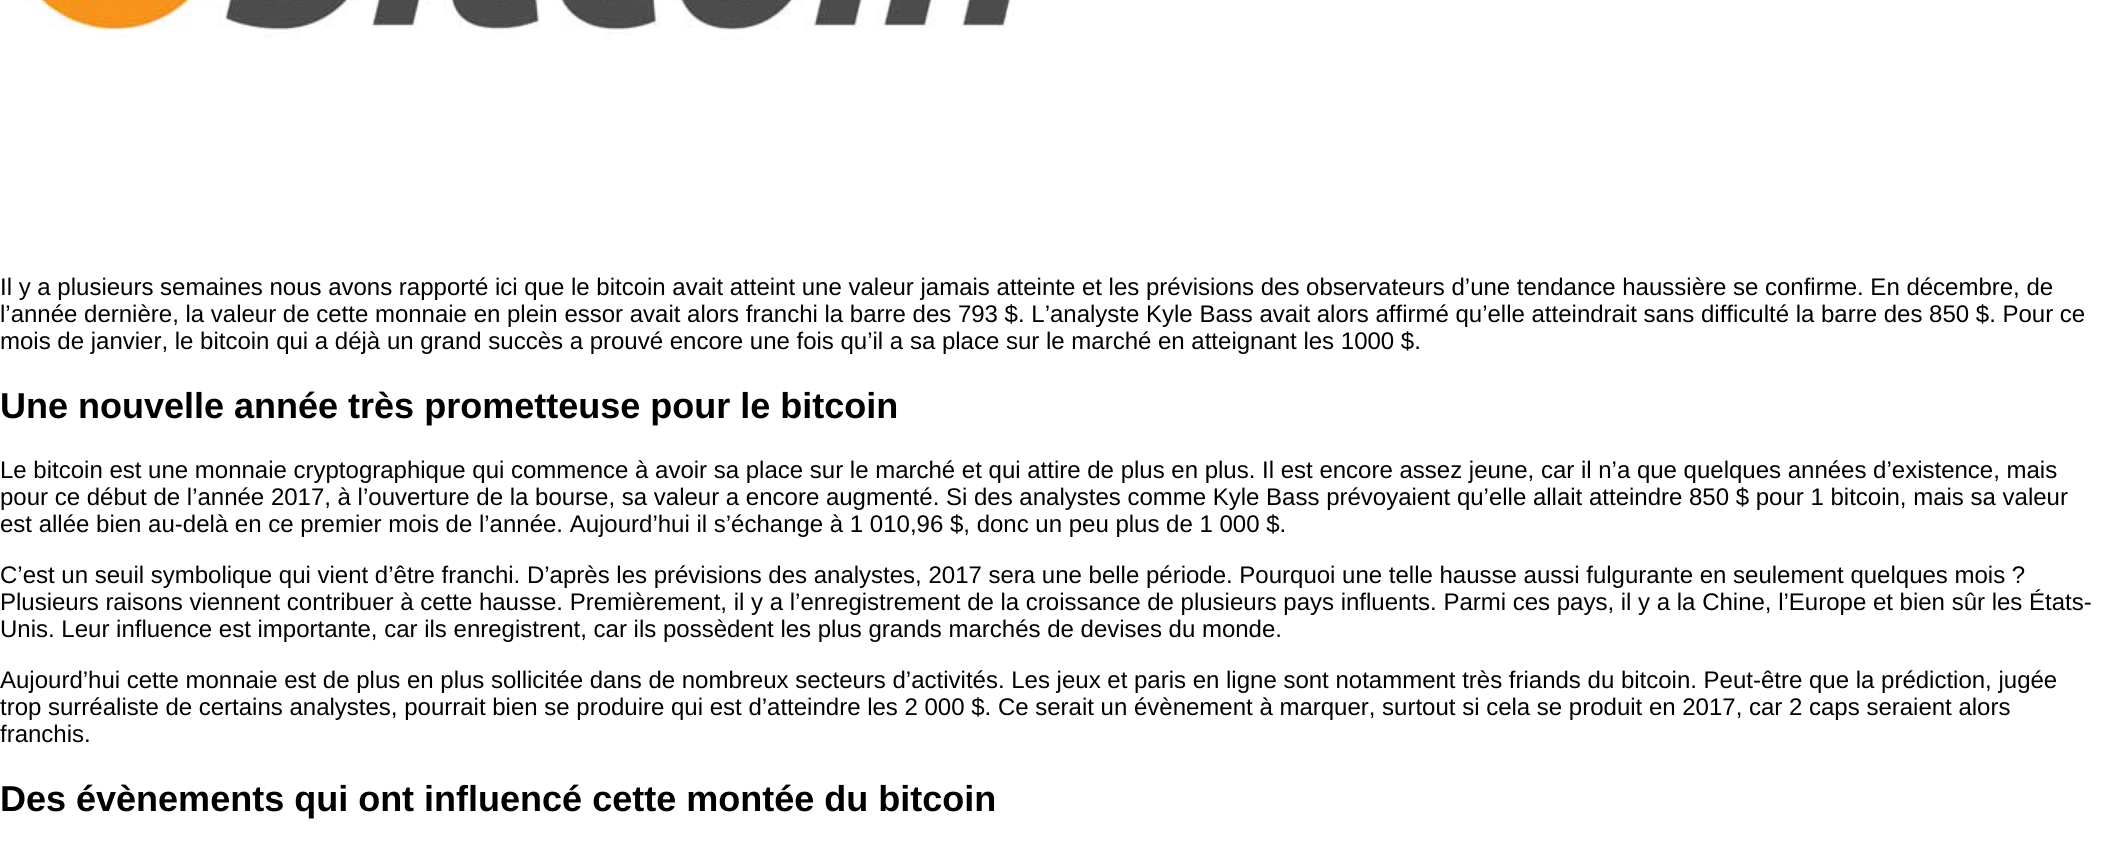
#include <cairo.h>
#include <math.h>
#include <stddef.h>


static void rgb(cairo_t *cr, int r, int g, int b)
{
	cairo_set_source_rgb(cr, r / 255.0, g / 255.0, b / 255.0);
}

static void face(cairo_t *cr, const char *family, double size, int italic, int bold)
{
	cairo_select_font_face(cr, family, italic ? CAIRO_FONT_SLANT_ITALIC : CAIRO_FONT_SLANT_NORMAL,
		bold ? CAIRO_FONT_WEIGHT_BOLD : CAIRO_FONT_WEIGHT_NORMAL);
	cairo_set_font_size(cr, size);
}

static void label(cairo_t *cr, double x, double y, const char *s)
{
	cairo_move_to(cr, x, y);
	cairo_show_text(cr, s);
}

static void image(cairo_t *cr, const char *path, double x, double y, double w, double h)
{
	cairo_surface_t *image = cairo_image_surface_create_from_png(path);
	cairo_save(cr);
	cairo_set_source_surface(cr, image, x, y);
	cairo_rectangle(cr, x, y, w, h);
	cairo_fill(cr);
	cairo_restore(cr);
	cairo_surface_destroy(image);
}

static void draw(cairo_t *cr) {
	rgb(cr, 255, 255, 255);
	cairo_paint(cr);
	image(cr, "image0.png", 24, 0, 991, 40);
	face(cr, "Liberation Sans", 24, 0, 0);
	rgb(cr, 0, 0, 0);
	label(cr, 0, 295, "Il y a plusieurs semaines nous avons rapporté ici que le bitcoin avait atteint une valeur jamais atteinte et les prévisions des observateurs d’une tendance haussière se confirme. En décembre, de");
	label(cr, 0, 322, "l’année dernière, la valeur de cette monnaie en plein essor avait alors franchi la barre des 793 $. L’analyste Kyle Bass avait alors affirmé qu’elle atteindrait sans difficulté la barre des 850 $. Pour ce");
	label(cr, 0, 349, "mois de janvier, le bitcoin qui a déjà un grand succès a prouvé encore une fois qu’il a sa place sur le marché en atteignant les 1000 $.");
	face(cr, "Liberation Sans", 36, 0, 1);
	label(cr, 0, 418, "Une nouvelle année très prometteuse pour le bitcoin");
	face(cr, "Liberation Sans", 24, 0, 0);
	label(cr, 0, 478, "Le bitcoin est une monnaie cryptographique qui commence à avoir sa place sur le marché et qui attire de plus en plus. Il est encore assez jeune, car il n’a que quelques années d’existence, mais");
	label(cr, 0, 505, "pour ce début de l’année 2017, à l’ouverture de la bourse, sa valeur a encore augmenté. Si des analystes comme Kyle Bass prévoyaient qu’elle allait atteindre 850 $ pour 1 bitcoin, mais sa valeur");
	label(cr, 0, 532, "est allée bien au-delà en ce premier mois de l’année. Aujourd’hui il s’échange à 1 010,96 $, donc un peu plus de 1 000 $.");
	label(cr, 0, 583, "C’est un seuil symbolique qui vient d’être franchi. D’après les prévisions des analystes, 2017 sera une belle période. Pourquoi une telle hausse aussi fulgurante en seulement quelques mois ?");
	label(cr, 0, 610, "Plusieurs raisons viennent contribuer à cette hausse. Premièrement, il y a l’enregistrement de la croissance de plusieurs pays influents. Parmi ces pays, il y a la Chine, l’Europe et bien sûr les États-");
	label(cr, 0, 637, "Unis. Leur influence est importante, car ils enregistrent, car ils possèdent les plus grands marchés de devises du monde.");
	label(cr, 0, 688, "Aujourd’hui cette monnaie est de plus en plus sollicitée dans de nombreux secteurs d’activités. Les jeux et paris en ligne sont notamment très friands du bitcoin. Peut-être que la prédiction, jugée");
	label(cr, 0, 715, "trop surréaliste de certains analystes, pourrait bien se produire qui est d’atteindre les 2 000 $. Ce serait un évènement à marquer, surtout si cela se produit en 2017, car 2 caps seraient alors");
	label(cr, 0, 742, "franchis.");
	face(cr, "Liberation Sans", 36, 0, 1);
	label(cr, 0, 811, "Des évènements qui ont influencé cette montée du bitcoin");
}

int main(void) {
	cairo_surface_t *surface = cairo_image_surface_create(CAIRO_FORMAT_RGB24, 2101, 853);
	cairo_t *cr = cairo_create(surface);
	cairo_font_options_t *options = cairo_font_options_create();
	cairo_font_options_set_hint_metrics(options, CAIRO_HINT_METRICS_OFF);
	cairo_font_options_set_hint_style(options, CAIRO_HINT_STYLE_NONE);
	cairo_set_font_options(cr, options);
	cairo_set_miter_limit(cr, 4);
	draw(cr);
	cairo_surface_write_to_png(surface, "render.png");
	cairo_font_options_destroy(options);
	cairo_destroy(cr);
	cairo_surface_destroy(surface);
	return 0;
}
